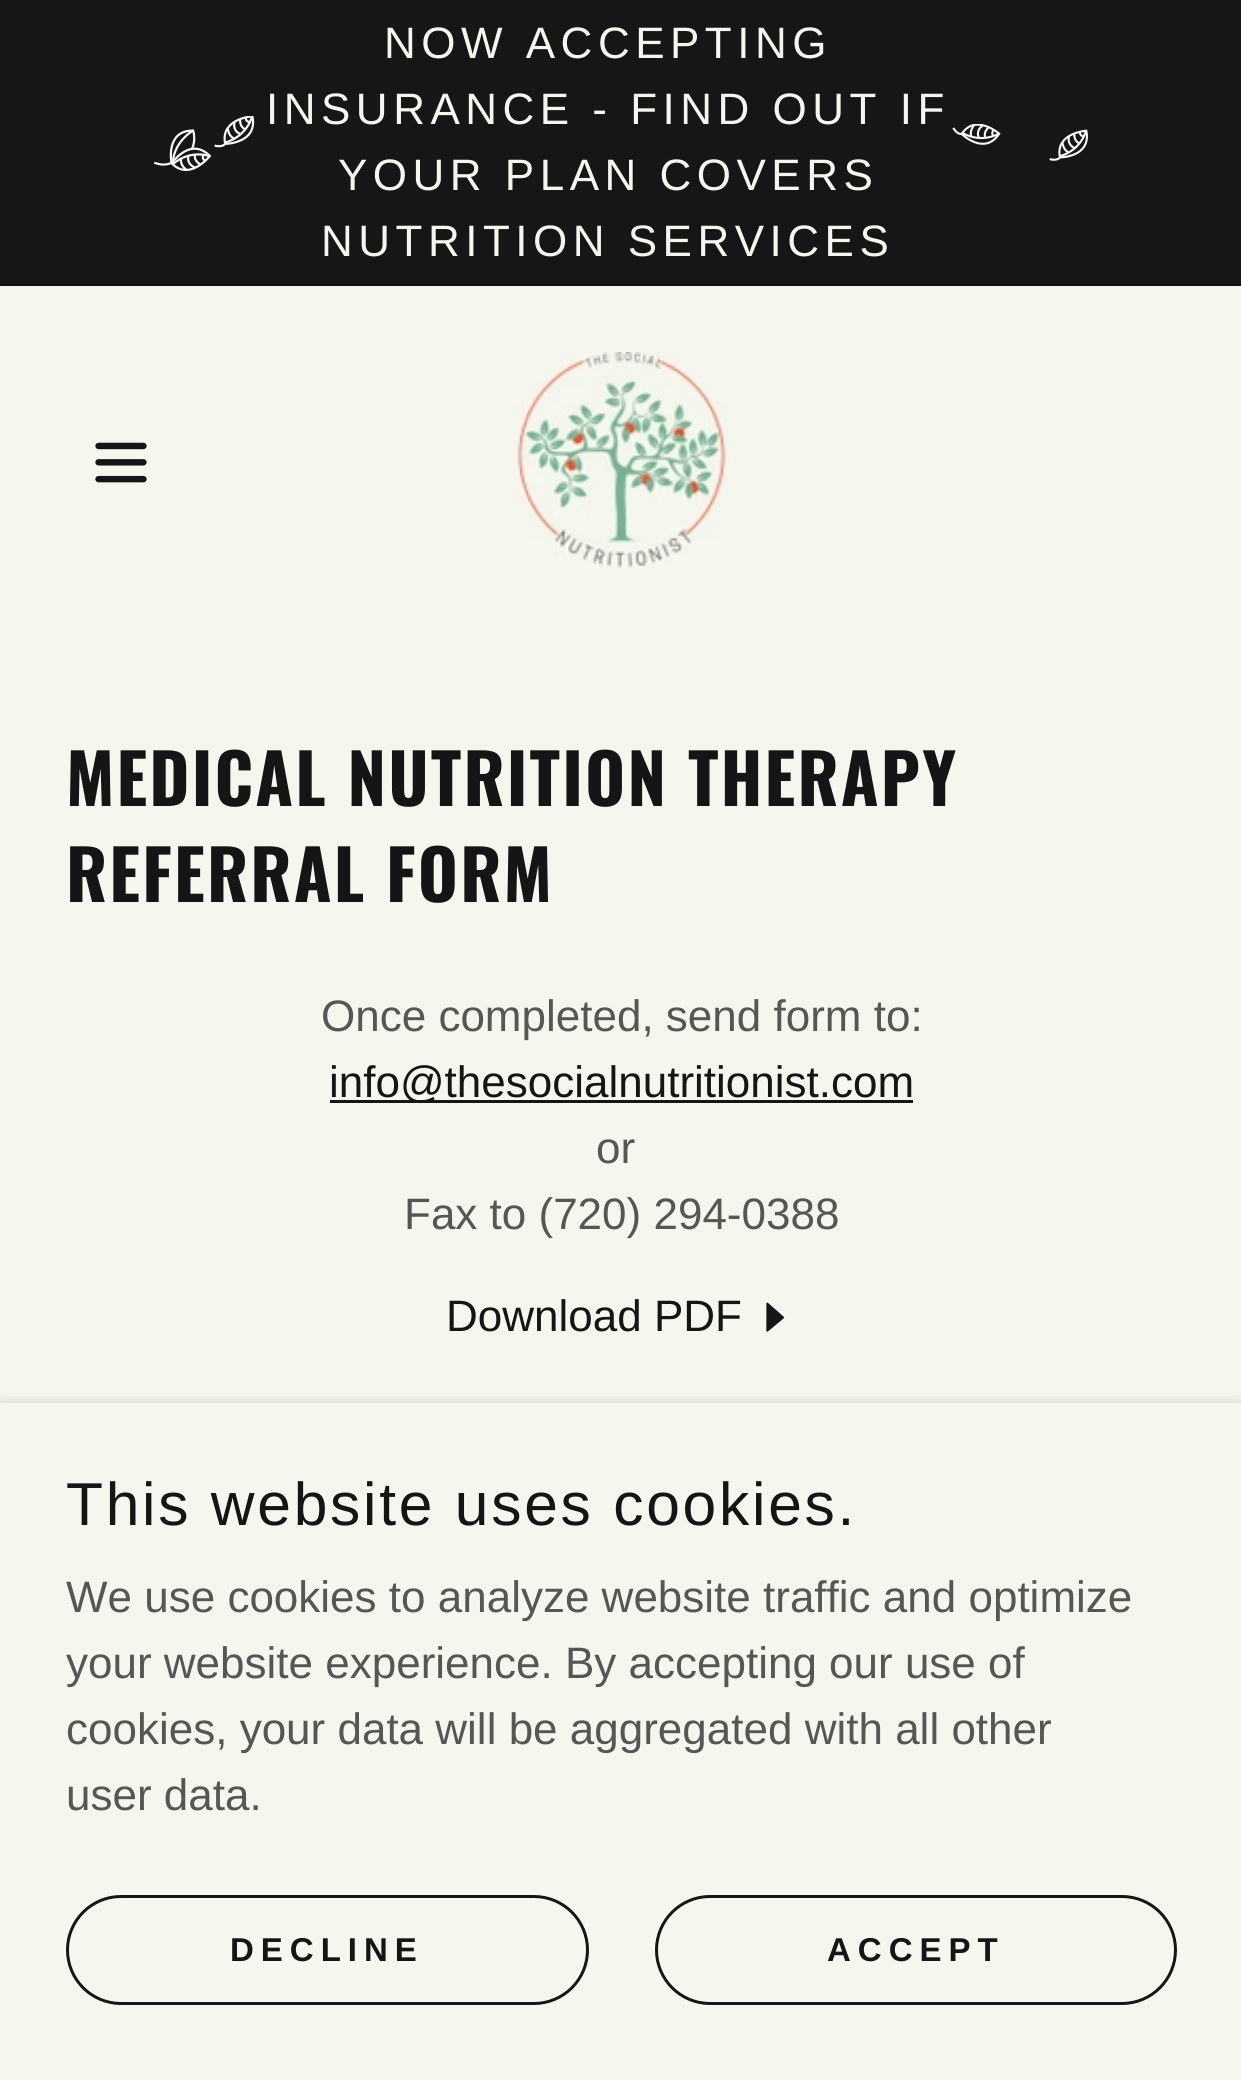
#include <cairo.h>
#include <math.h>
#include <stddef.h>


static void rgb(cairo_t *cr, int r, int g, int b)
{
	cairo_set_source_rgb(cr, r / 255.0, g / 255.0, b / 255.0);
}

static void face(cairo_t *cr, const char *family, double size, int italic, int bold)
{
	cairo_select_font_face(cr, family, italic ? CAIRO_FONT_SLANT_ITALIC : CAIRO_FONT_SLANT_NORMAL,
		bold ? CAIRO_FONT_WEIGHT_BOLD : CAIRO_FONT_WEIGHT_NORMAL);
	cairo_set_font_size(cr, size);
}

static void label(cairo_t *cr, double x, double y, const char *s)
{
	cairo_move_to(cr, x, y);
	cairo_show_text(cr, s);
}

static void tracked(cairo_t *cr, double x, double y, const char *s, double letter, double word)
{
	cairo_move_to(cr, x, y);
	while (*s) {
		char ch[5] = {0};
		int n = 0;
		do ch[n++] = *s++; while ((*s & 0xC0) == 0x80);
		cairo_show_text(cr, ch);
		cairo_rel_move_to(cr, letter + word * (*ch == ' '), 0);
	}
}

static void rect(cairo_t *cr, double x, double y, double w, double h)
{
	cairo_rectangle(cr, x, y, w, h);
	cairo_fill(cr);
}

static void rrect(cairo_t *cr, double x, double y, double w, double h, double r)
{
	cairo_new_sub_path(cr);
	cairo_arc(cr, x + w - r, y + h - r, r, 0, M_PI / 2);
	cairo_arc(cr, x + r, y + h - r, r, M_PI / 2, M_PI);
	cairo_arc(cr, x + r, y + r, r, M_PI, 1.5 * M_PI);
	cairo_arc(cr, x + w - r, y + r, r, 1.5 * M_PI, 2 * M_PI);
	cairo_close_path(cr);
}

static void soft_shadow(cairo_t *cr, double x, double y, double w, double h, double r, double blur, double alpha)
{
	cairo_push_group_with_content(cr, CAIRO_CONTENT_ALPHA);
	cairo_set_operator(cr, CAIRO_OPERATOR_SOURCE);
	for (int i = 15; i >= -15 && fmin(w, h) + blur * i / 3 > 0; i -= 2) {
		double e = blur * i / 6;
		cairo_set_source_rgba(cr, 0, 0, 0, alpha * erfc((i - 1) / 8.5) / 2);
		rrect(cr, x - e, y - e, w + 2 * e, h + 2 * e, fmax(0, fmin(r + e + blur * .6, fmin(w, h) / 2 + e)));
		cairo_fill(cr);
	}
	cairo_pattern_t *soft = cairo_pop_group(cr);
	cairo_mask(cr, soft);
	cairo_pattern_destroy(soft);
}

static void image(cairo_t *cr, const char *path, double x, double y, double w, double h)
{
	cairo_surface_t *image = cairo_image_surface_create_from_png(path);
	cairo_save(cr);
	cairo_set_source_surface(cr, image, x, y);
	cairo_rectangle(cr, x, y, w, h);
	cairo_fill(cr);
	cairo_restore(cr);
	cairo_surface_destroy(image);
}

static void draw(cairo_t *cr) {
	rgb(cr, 245, 246, 238);
	cairo_paint(cr);
	rgb(cr, 22, 22, 22);
	rect(cr, 0, 0, 1241, 286);
	image(cr, "image0.png", 154, 116, 101, 55);
	face(cr, "Liberation Sans", 44, 0, 0);
	rgb(cr, 245, 246, 238);
	tracked(cr, 384, 58, "NOW ACCEPTING", 5.5, 0);
	tracked(cr, 266, 124, "INSURANCE - FIND OUT IF", 5.5, 0);
	tracked(cr, 338, 190, "YOUR PLAN COVERS", 5.5, 0);
	tracked(cr, 321, 256, "NUTRITION SERVICES", 5.5, 0);
	image(cr, "image1.png", 952, 124, 136, 37);
	image(cr, "image2.png", 95, 442, 52, 41);
	image(cr, "image3.png", 514, 352, 217, 216);
	face(cr, "Oswald", 68.75, 0, 1);
	rgb(cr, 21, 21, 21);
	tracked(cr, 66, 806, "MEDICAL NUTRITION THERAPY", 2.1, 0);
	tracked(cr, 66, 902, "REFERRAL FORM", 2.1, 0);
	face(cr, "Liberation Sans", 44, 0, 0);
	rgb(cr, 86, 86, 85);
	label(cr, 321, 1031, "Once completed, send form to:");
	rgb(cr, 22, 22, 22);
	rect(cr, 330, 1100, 583, 3);
	rgb(cr, 21, 21, 21);
	label(cr, 329, 1097, "info@thesocialnutritionist.com");
	rgb(cr, 86, 86, 85);
	label(cr, 596, 1163, "or");
	label(cr, 404, 1229, "Fax to (720) 294-0388");
	rgb(cr, 21, 21, 21);
	label(cr, 446, 1331, "Download PDF");
	image(cr, "image4.png", 766, 1302, 19, 30);
	rgb(cr, 0, 0, 0);
	soft_shadow(cr, 0, 1408, 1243, 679, 0, 8, 0.3);
	rgb(cr, 245, 246, 238);
	rect(cr, 0, 1403, 1241, 677);
	face(cr, "Liberation Sans", 60.5, 0, 0);
	rgb(cr, 21, 21, 21);
	tracked(cr, 66, 1525, "This website uses cookies.", 2.75, 0);
	face(cr, "Liberation Sans", 44, 0, 0);
	rgb(cr, 86, 86, 85);
	label(cr, 66, 1612, "We use cookies to analyze website traffic and optimize");
	label(cr, 66, 1678, "your website experience. By accepting our use of");
	label(cr, 66, 1744, "cookies, your data will be aggregated with all other");
	label(cr, 66, 1810, "user data.");
	rrect(cr, 67.5, 1896.5, 520, 107, 53.5);
	rgb(cr, 22, 22, 22);
	cairo_set_line_width(cr, 3);
	cairo_stroke(cr);
	face(cr, "Liberation Sans", 33, 0, 1);
	rgb(cr, 21, 21, 21);
	tracked(cr, 230, 1961, "DECLINE", 7, 0);
	rrect(cr, 656.5, 1896.5, 519, 107, 53.5);
	rgb(cr, 22, 22, 22);
	cairo_stroke(cr);
	rgb(cr, 21, 21, 21);
	tracked(cr, 827, 1961, "ACCEPT", 7, 0);
}

int main(void) {
	cairo_surface_t *surface = cairo_image_surface_create(CAIRO_FORMAT_RGB24, 1241, 2080);
	cairo_t *cr = cairo_create(surface);
	cairo_font_options_t *options = cairo_font_options_create();
	cairo_font_options_set_hint_metrics(options, CAIRO_HINT_METRICS_OFF);
	cairo_font_options_set_hint_style(options, CAIRO_HINT_STYLE_NONE);
	cairo_set_font_options(cr, options);
	cairo_set_miter_limit(cr, 4);
	draw(cr);
	cairo_surface_write_to_png(surface, "render.png");
	cairo_font_options_destroy(options);
	cairo_destroy(cr);
	cairo_surface_destroy(surface);
	return 0;
}
